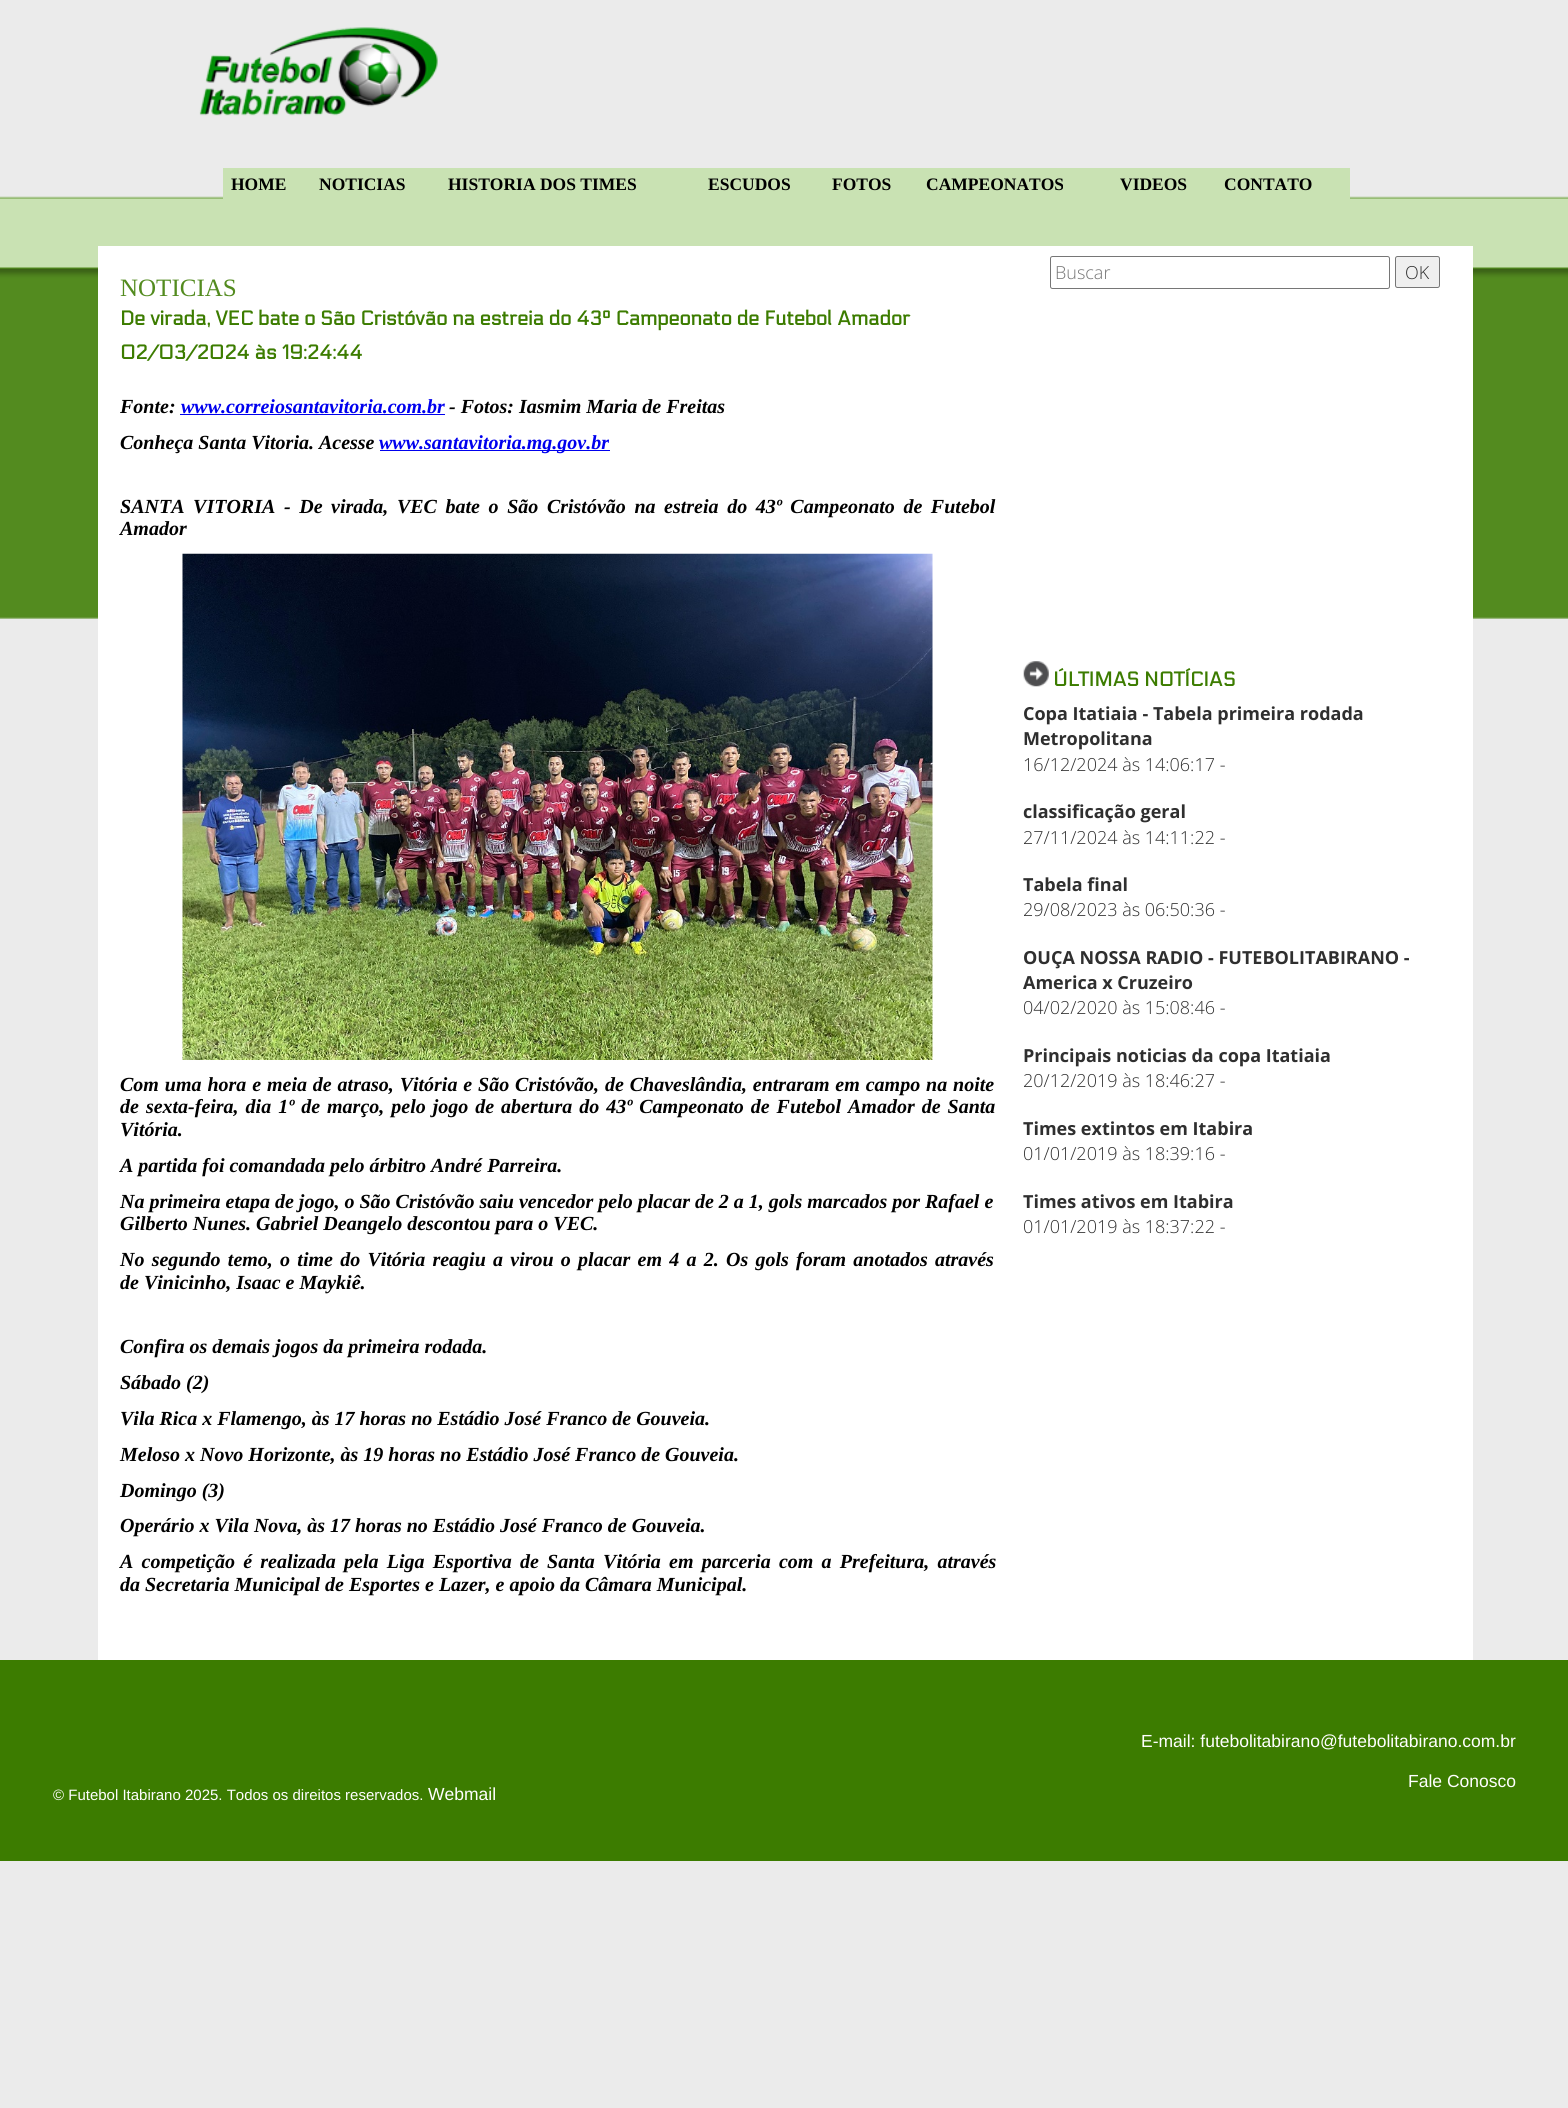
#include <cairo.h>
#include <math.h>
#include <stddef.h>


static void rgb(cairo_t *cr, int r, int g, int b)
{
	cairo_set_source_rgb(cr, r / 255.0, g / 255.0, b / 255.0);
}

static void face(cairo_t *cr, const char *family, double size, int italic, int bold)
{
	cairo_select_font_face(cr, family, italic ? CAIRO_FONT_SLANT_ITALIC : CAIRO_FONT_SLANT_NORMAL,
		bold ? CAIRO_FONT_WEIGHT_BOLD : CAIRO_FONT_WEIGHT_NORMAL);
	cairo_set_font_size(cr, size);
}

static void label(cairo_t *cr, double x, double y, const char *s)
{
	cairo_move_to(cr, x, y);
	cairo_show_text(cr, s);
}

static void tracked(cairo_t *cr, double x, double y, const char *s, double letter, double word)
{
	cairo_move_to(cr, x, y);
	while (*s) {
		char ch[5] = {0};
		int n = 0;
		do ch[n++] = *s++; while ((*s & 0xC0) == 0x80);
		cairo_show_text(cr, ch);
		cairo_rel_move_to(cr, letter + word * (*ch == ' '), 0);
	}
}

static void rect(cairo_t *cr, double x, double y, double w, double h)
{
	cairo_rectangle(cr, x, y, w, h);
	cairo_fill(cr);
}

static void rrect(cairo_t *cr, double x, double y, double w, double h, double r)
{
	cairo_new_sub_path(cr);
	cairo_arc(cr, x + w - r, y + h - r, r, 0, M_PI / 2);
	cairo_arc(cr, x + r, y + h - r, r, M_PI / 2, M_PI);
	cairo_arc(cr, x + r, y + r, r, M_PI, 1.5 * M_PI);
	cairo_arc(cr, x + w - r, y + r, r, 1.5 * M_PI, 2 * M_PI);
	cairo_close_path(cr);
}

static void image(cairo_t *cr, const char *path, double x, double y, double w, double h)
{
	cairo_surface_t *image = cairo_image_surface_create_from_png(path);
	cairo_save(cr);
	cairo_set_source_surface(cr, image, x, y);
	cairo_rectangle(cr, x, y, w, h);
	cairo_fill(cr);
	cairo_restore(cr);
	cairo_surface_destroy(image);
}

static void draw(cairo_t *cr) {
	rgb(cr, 235, 235, 235);
	cairo_paint(cr);
	image(cr, "image0.png", 0, 196, 1568, 423);
	image(cr, "image1.png", 199, 27, 239, 89);
	rgb(cr, 201, 226, 179);
	rect(cr, 223, 168, 1127, 31);
	face(cr, "Liberation Serif", 17.5, 0, 1);
	rgb(cr, 0, 0, 0);
	label(cr, 231, 190, "HOME");
	label(cr, 319, 190, "NOTICIAS");
	label(cr, 448, 190, "HISTORIA DOS TIMES");
	label(cr, 708, 190, "ESCUDOS");
	label(cr, 832, 190, "FOTOS");
	label(cr, 926, 190, "CAMPEONATOS");
	label(cr, 1120, 190, "VIDEOS");
	label(cr, 1224, 190, "CONTATO");
	rgb(cr, 255, 255, 255);
	rect(cr, 98, 246, 1375, 1414);
	face(cr, "Liberation Serif", 25, 0, 0);
	rgb(cr, 83, 139, 31);
	label(cr, 120, 296, "NOTICIAS");
	face(cr, "Electrolize", 20, 0, 1);
	rgb(cr, 60, 124, 0);
	label(cr, 120, 325, "De virada, VEC bate o São Cristóvão na estreia do 43º Campeonato de Futebol Amador");
	label(cr, 120, 359, "02/03/2024 às 19:24:44");
	face(cr, "Liberation Serif", 20, 1, 1);
	rgb(cr, 0, 0, 0);
	label(cr, 120, 413, "Fonte:");
	rgb(cr, 0, 0, 238);
	label(cr, 181, 413, "www.correiosantavitoria.com.br");
	rect(cr, 180, 414, 265, 1);
	rgb(cr, 0, 0, 0);
	label(cr, 449, 413, "- Fotos: Iasmim Maria de Freitas");
	label(cr, 120, 449, "Conheça Santa Vitoria. Acesse");
	rgb(cr, 0, 0, 238);
	rect(cr, 380, 450, 230, 1);
	label(cr, 379, 449, "www.santavitoria.mg.gov.br");
	rgb(cr, 0, 0, 0);
	tracked(cr, 120, 513, "SANTA VITORIA - De virada, VEC bate o São Cristóvão na estreia do 43º Campeonato de Futebol", 0, 3.6);
	label(cr, 120, 535, "Amador");
	image(cr, "image2.png", 182, 553, 751, 507);
	tracked(cr, 120, 1091, "Com uma hora e meia de atraso, Vitória e São Cristóvão, de Chaveslândia, entraram em campo na noite", 0, 0.9);
	tracked(cr, 120, 1113, "de sexta-feira, dia 1º de março, pelo jogo de abertura do 43º Campeonato de Futebol Amador de Santa", 0, 2);
	label(cr, 120, 1136, "Vitória.");
	label(cr, 120, 1172, "A partida foi comandada pelo árbitro André Parreira.");
	label(cr, 120, 1208, "Na primeira etapa de jogo, o São Cristóvão saiu vencedor pelo placar de 2 a 1, gols marcados por Rafael e");
	label(cr, 120, 1230, "Gilberto Nunes. Gabriel Deangelo descontou para o VEC.");
	tracked(cr, 120, 1266, "No segundo temo, o time do Vitória reagiu a virou o placar em 4 a 2. Os gols foram anotados através", 0, 2.25);
	label(cr, 120, 1289, "de Vinicinho, Isaac e Maykiê.");
	label(cr, 120, 1353, "Confira os demais jogos da primeira rodada.");
	label(cr, 120, 1389, "Sábado (2)");
	label(cr, 120, 1425, "Vila Rica x Flamengo, às 17 horas no Estádio José Franco de Gouveia.");
	label(cr, 120, 1461, "Meloso x Novo Horizonte, às 19 horas no Estádio José Franco de Gouveia.");
	label(cr, 120, 1497, "Domingo (3)");
	label(cr, 120, 1532, "Operário x Vila Nova, às 17 horas no Estádio José Franco de Gouveia.");
	tracked(cr, 120, 1568, "A competição é realizada pela Liga Esportiva de Santa Vitória em parceria com a Prefeitura, através", 0, 3.25);
	label(cr, 120, 1591, "da Secretaria Municipal de Esportes e Lazer, e apoio da Câmara Municipal.");
	rrect(cr, 1050.5, 256.5, 339, 32, 2);
	rgb(cr, 118, 118, 118);
	cairo_set_line_width(cr, 1);
	cairo_stroke(cr);
	face(cr, "Open Sans Light", 18, 0, 0);
	rgb(cr, 117, 117, 117);
	label(cr, 1055, 279, "Buscar");
	rgb(cr, 239, 239, 239);
	rrect(cr, 1395.5, 256.5, 44, 31, 2);
	cairo_fill_preserve(cr);
	rgb(cr, 118, 118, 118);
	cairo_stroke(cr);
	rgb(cr, 47, 47, 47);
	label(cr, 1405, 279, "OK");
	image(cr, "image3.png", 1023, 661, 26, 26);
	face(cr, "Electrolize", 20, 0, 1);
	rgb(cr, 60, 124, 0);
	label(cr, 1053, 686, "ÚLTIMAS NOTÍCIAS");
	face(cr, "Open Sans", 18, 0, 1);
	rgb(cr, 47, 47, 47);
	label(cr, 1023, 720, "Copa Itatiaia - Tabela primeira rodada");
	label(cr, 1023, 745, "Metropolitana");
	face(cr, "Open Sans Light", 18, 0, 0);
	label(cr, 1023, 771, "16/12/2024 às 14:06:17 -");
	face(cr, "Open Sans", 18, 0, 1);
	label(cr, 1023, 818, "classificação geral");
	face(cr, "Open Sans Light", 18, 0, 0);
	label(cr, 1023, 844, "27/11/2024 às 14:11:22 -");
	face(cr, "Open Sans", 18, 0, 1);
	label(cr, 1023, 891, "Tabela final");
	face(cr, "Open Sans Light", 18, 0, 0);
	label(cr, 1023, 916, "29/08/2023 às 06:50:36 -");
	face(cr, "Open Sans", 18, 0, 1);
	label(cr, 1023, 964, "OUÇA NOSSA RADIO - FUTEBOLITABIRANO -");
	label(cr, 1023, 989, "America x Cruzeiro");
	face(cr, "Open Sans Light", 18, 0, 0);
	label(cr, 1023, 1014, "04/02/2020 às 15:08:46 -");
	face(cr, "Open Sans", 18, 0, 1);
	label(cr, 1023, 1062, "Principais noticias da copa Itatiaia");
	face(cr, "Open Sans Light", 18, 0, 0);
	label(cr, 1023, 1087, "20/12/2019 às 18:46:27 -");
	face(cr, "Open Sans", 18, 0, 1);
	label(cr, 1023, 1135, "Times extintos em Itabira");
	face(cr, "Open Sans Light", 18, 0, 0);
	label(cr, 1023, 1160, "01/01/2019 às 18:39:16 -");
	face(cr, "Open Sans", 18, 0, 1);
	label(cr, 1023, 1208, "Times ativos em Itabira");
	face(cr, "Open Sans Light", 18, 0, 0);
	label(cr, 1023, 1233, "01/01/2019 às 18:37:22 -");
	rgb(cr, 60, 124, 0);
	rect(cr, 0, 1660, 1568, 201);
	face(cr, "Liberation Sans", 17.5, 0, 0);
	rgb(cr, 255, 255, 255);
	label(cr, 1141, 1747, "E-mail: futebolitabirano@futebolitabirano.com.br");
	label(cr, 1408, 1787, "Fale Conosco");
	face(cr, "Liberation Sans", 15, 0, 0);
	label(cr, 53, 1800, "© Futebol Itabirano 2025. Todos os direitos reservados.");
	face(cr, "Liberation Sans", 17.5, 0, 0);
	label(cr, 428, 1800, "Webmail");
}

int main(void) {
	cairo_surface_t *surface = cairo_image_surface_create(CAIRO_FORMAT_RGB24, 1568, 2108);
	cairo_t *cr = cairo_create(surface);
	cairo_font_options_t *options = cairo_font_options_create();
	cairo_font_options_set_hint_metrics(options, CAIRO_HINT_METRICS_OFF);
	cairo_font_options_set_hint_style(options, CAIRO_HINT_STYLE_NONE);
	cairo_set_font_options(cr, options);
	cairo_set_miter_limit(cr, 4);
	draw(cr);
	cairo_surface_write_to_png(surface, "render.png");
	cairo_font_options_destroy(options);
	cairo_destroy(cr);
	cairo_surface_destroy(surface);
	return 0;
}
